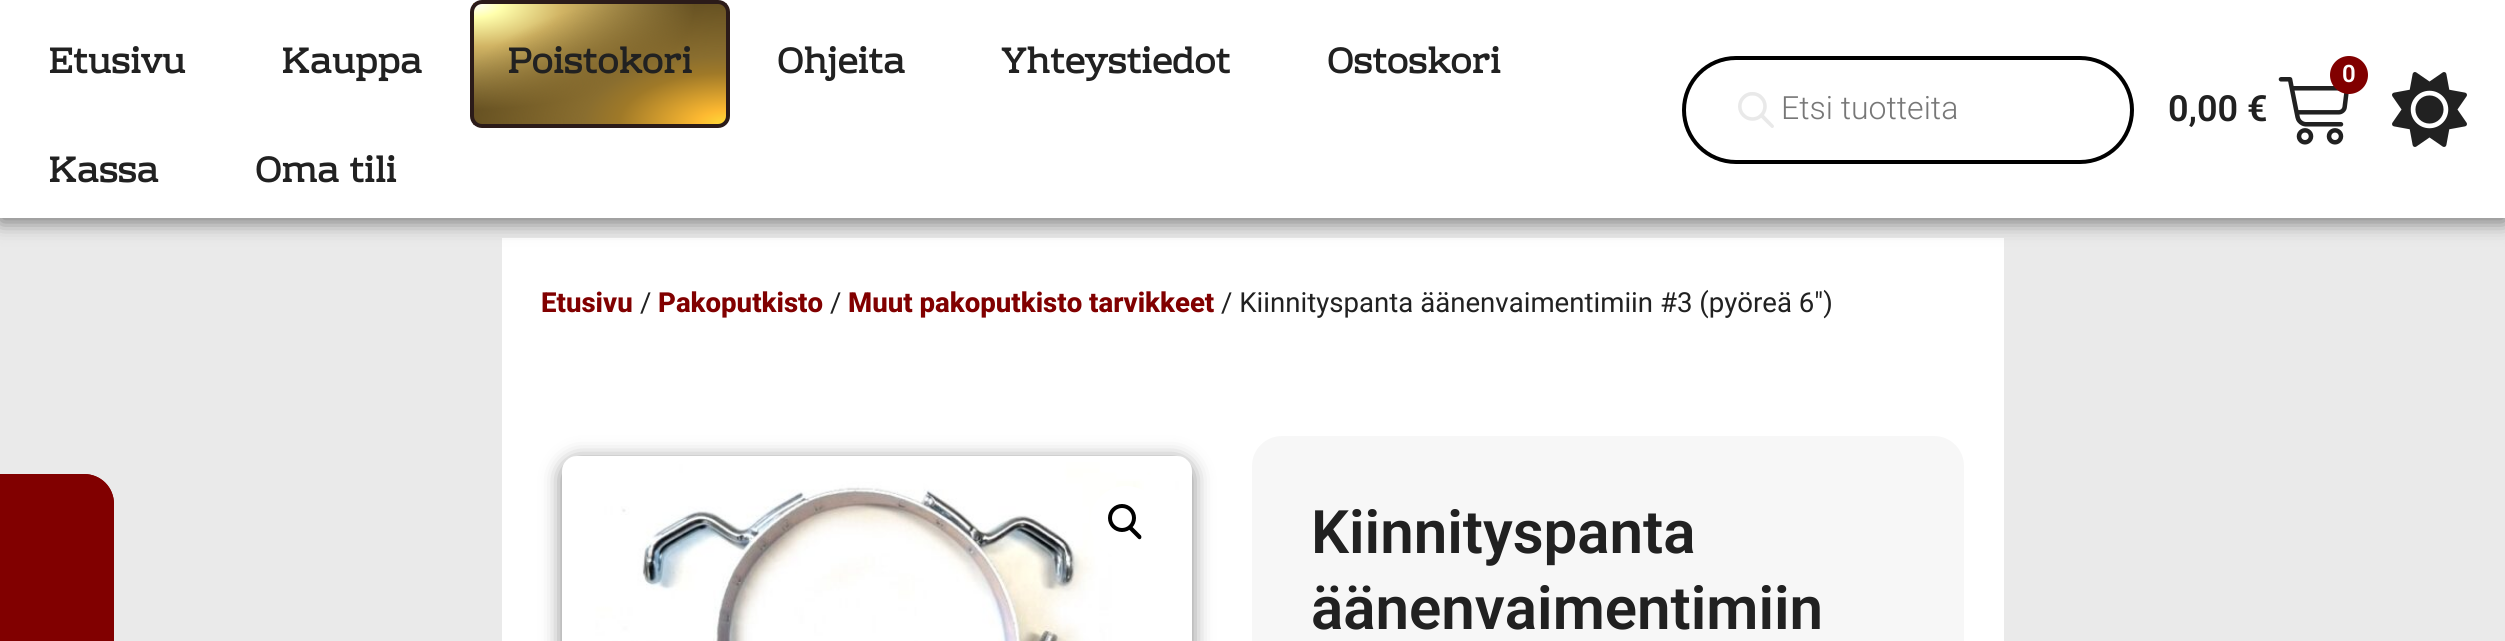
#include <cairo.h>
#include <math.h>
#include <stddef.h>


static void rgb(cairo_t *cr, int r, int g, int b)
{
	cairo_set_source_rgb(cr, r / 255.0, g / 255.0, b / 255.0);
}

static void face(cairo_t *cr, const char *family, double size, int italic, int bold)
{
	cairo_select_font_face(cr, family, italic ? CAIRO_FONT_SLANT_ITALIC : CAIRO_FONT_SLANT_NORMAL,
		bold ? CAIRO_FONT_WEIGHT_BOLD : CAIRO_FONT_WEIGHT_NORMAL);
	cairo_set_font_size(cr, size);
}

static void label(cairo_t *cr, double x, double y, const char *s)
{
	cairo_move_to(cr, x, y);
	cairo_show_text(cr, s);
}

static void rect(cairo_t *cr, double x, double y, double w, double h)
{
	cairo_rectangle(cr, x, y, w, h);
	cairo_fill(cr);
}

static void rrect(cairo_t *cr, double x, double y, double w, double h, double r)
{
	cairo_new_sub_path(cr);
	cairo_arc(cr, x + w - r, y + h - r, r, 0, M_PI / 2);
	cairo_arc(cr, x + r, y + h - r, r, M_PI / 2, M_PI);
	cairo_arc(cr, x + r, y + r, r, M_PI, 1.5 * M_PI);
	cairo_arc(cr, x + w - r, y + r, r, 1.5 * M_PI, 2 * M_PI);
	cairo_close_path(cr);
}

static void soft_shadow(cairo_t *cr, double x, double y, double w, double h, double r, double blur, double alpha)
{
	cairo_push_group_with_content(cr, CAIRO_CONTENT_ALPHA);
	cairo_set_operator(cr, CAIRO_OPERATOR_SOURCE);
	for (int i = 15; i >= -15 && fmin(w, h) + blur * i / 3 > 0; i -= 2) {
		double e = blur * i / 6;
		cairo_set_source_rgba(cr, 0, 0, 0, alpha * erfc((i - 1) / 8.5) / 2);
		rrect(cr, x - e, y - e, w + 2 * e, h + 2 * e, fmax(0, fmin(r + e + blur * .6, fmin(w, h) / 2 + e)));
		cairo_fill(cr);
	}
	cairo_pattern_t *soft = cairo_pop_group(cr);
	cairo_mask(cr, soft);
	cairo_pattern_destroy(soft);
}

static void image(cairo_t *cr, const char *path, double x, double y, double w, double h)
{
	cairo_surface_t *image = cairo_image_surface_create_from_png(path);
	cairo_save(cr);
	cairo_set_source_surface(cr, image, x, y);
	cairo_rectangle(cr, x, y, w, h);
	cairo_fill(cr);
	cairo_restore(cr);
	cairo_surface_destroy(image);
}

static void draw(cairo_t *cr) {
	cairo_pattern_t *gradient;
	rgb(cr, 234, 234, 234);
	cairo_paint(cr);
	rgb(cr, 255, 255, 255);
	rect(cr, 502, 238, 1502, 403);
	rgb(cr, 0, 0, 0);
	soft_shadow(cr, 0, 4, 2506, 218, 0, 10, 0.5);
	rgb(cr, 255, 255, 255);
	rect(cr, 0, 0, 2505, 218);
	face(cr, "Rhodium Libre", 36, 0, 1);
	rgb(cr, 33, 33, 33);
	label(cr, 48, 73, "Etusivu");
	label(cr, 281, 73, "Kauppa");
	cairo_save(cr);
	rrect(cr, 470, 0, 260, 128, 12);
	cairo_clip(cr);
	gradient = cairo_pattern_create_radial(0, 0, 0, 0, 0, 1);
	cairo_pattern_set_matrix(gradient, &(cairo_matrix_t){1.0 / 356, 0, 0, 1.0 / 170, -1.0 * 222 / 356, -1.0 * -116 / 170});
	cairo_pattern_add_color_stop_rgba(gradient, 0, 1, 1, 1, 1);
	cairo_pattern_add_color_stop_rgba(gradient, 0.08, 1, 1, 0.675, 1);
	cairo_pattern_add_color_stop_rgba(gradient, 0.25, 0.82, 0.706, 0.392, 1);
	cairo_pattern_add_color_stop_rgba(gradient, 0.62, 0.365, 0.29, 0.122, 1);
	cairo_pattern_add_color_stop_rgba(gradient, 1, 0.365, 0.29, 0.122, 1);
	cairo_set_source(cr, gradient);
	cairo_pattern_destroy(gradient);
	rect(cr, 470, 3, 4, 1);
	gradient = cairo_pattern_create_radial(0, 0, 0, 0, 0, 1);
	cairo_pattern_set_matrix(gradient, &(cairo_matrix_t){1.0 / 356, 0, 0, 1.0 / 170, -1.0 * 726 / 356, -1.0 * -116 / 170});
	cairo_pattern_add_color_stop_rgba(gradient, 0, 1, 1, 1, 1);
	cairo_pattern_add_color_stop_rgba(gradient, 0.08, 1, 1, 0.675, 1);
	cairo_pattern_add_color_stop_rgba(gradient, 0.25, 0.82, 0.706, 0.392, 1);
	cairo_pattern_add_color_stop_rgba(gradient, 0.62, 0.365, 0.29, 0.122, 1);
	cairo_pattern_add_color_stop_rgba(gradient, 1, 0.365, 0.29, 0.122, 1);
	cairo_set_source(cr, gradient);
	cairo_pattern_destroy(gradient);
	rect(cr, 726, 3, 4, 1);
	cairo_restore(cr);
	gradient = cairo_pattern_create_radial(0, 0, 0, 0, 0, 1);
	cairo_pattern_set_matrix(gradient, &(cairo_matrix_t){1.0 / 356, 0, 0, 1.0 / 170, -1.0 * 474 / 356, -1.0 * 4 / 170});
	cairo_pattern_add_color_stop_rgba(gradient, 0, 1, 1, 1, 1);
	cairo_pattern_add_color_stop_rgba(gradient, 0.08, 1, 1, 0.675, 1);
	cairo_pattern_add_color_stop_rgba(gradient, 0.25, 0.82, 0.706, 0.392, 1);
	cairo_pattern_add_color_stop_rgba(gradient, 0.62, 0.365, 0.29, 0.122, 1);
	cairo_pattern_add_color_stop_rgba(gradient, 1, 0.365, 0.29, 0.122, 1);
	cairo_set_source(cr, gradient);
	cairo_pattern_destroy(gradient);
	rect(cr, 474, 4, 252, 120);
	cairo_save(cr);
	rrect(cr, 470, 0, 260, 128, 12);
	cairo_clip(cr);
	gradient = cairo_pattern_create_radial(0, 0, 0, 0, 0, 1);
	cairo_pattern_set_matrix(gradient, &(cairo_matrix_t){1.0 / 356, 0, 0, 1.0 / 170, -1.0 * 222 / 356, -1.0 * 124 / 170});
	cairo_pattern_add_color_stop_rgba(gradient, 0, 1, 1, 1, 1);
	cairo_pattern_add_color_stop_rgba(gradient, 0.08, 1, 1, 0.675, 1);
	cairo_pattern_add_color_stop_rgba(gradient, 0.25, 0.82, 0.706, 0.392, 1);
	cairo_pattern_add_color_stop_rgba(gradient, 0.62, 0.365, 0.29, 0.122, 1);
	cairo_pattern_add_color_stop_rgba(gradient, 1, 0.365, 0.29, 0.122, 1);
	cairo_set_source(cr, gradient);
	cairo_pattern_destroy(gradient);
	rect(cr, 470, 124, 4, 1);
	gradient = cairo_pattern_create_radial(0, 0, 0, 0, 0, 1);
	cairo_pattern_set_matrix(gradient, &(cairo_matrix_t){1.0 / 356, 0, 0, 1.0 / 170, -1.0 * 474 / 356, -1.0 * 4 / 170});
	cairo_pattern_add_color_stop_rgba(gradient, 0, 0.996, 0.859, 0.216, 1);
	cairo_pattern_add_color_stop_rgba(gradient, 0.08, 0.992, 0.725, 0.192, 1);
	cairo_pattern_add_color_stop_rgba(gradient, 0.3, 0.624, 0.475, 0.157, 1);
	cairo_pattern_add_color_stop_rgba(gradient, 0.4, 0.541, 0.431, 0.184, 1);
	cairo_pattern_add_color_stop_rgba(gradient, 0.8, 0.722, 0.69, 0.616, 1);
	cairo_set_source(cr, gradient);
	cairo_pattern_destroy(gradient);
	rect(cr, 470, 3, 4, 1);
	gradient = cairo_pattern_create_radial(0, 0, 0, 0, 0, 1);
	cairo_pattern_set_matrix(gradient, &(cairo_matrix_t){1.0 / 356, 0, 0, 1.0 / 170, -1.0 * 978 / 356, -1.0 * 4 / 170});
	cairo_pattern_add_color_stop_rgba(gradient, 0, 0.996, 0.859, 0.216, 1);
	cairo_pattern_add_color_stop_rgba(gradient, 0.08, 0.992, 0.725, 0.192, 1);
	cairo_pattern_add_color_stop_rgba(gradient, 0.3, 0.624, 0.475, 0.157, 1);
	cairo_pattern_add_color_stop_rgba(gradient, 0.4, 0.541, 0.431, 0.184, 1);
	cairo_pattern_add_color_stop_rgba(gradient, 0.8, 0.725, 0.694, 0.62, 1);
	cairo_set_source(cr, gradient);
	cairo_pattern_destroy(gradient);
	rect(cr, 726, 3, 4, 1);
	cairo_restore(cr);
	gradient = cairo_pattern_create_radial(0, 0, 0, 0, 0, 1);
	cairo_pattern_set_matrix(gradient, &(cairo_matrix_t){1.0 / 356, 0, 0, 1.0 / 170, -1.0 * 726 / 356, -1.0 * 124 / 170});
	cairo_pattern_add_color_stop_rgba(gradient, 0, 0.996, 0.859, 0.216, 1);
	cairo_pattern_add_color_stop_rgba(gradient, 0.08, 0.992, 0.725, 0.192, 1);
	cairo_pattern_add_color_stop_rgba(gradient, 0.3, 0.624, 0.475, 0.157, 1);
	cairo_pattern_add_color_stop_rgba(gradient, 0.4, 0.541, 0.431, 0.184, 1);
	cairo_pattern_add_color_stop_rgba(gradient, 0.8, 0.541, 0.431, 0.184, 0);
	cairo_set_source(cr, gradient);
	cairo_pattern_destroy(gradient);
	rect(cr, 474, 4, 252, 120);
	cairo_save(cr);
	rrect(cr, 470, 0, 260, 128, 12);
	cairo_clip(cr);
	gradient = cairo_pattern_create_radial(0, 0, 0, 0, 0, 1);
	cairo_pattern_set_matrix(gradient, &(cairo_matrix_t){1.0 / 356, 0, 0, 1.0 / 170, -1.0 * 474 / 356, -1.0 * 244 / 170});
	cairo_pattern_add_color_stop_rgba(gradient, 0, 0.996, 0.859, 0.216, 1);
	cairo_pattern_add_color_stop_rgba(gradient, 0.08, 0.992, 0.725, 0.192, 1);
	cairo_pattern_add_color_stop_rgba(gradient, 0.3, 0.624, 0.475, 0.157, 1);
	cairo_pattern_add_color_stop_rgba(gradient, 0.4, 0.541, 0.431, 0.184, 1);
	cairo_pattern_add_color_stop_rgba(gradient, 0.8, 0.725, 0.694, 0.62, 1);
	cairo_set_source(cr, gradient);
	cairo_pattern_destroy(gradient);
	rect(cr, 470, 124, 4, 1);
	cairo_restore(cr);
	rrect(cr, 472, 2, 256, 124, 10);
	rgb(cr, 43, 27, 25);
	cairo_set_line_width(cr, 4);
	cairo_stroke(cr);
	rgb(cr, 33, 33, 33);
	label(cr, 507, 73, "Poistokori");
	label(cr, 777, 73, "Ohjeita");
	label(cr, 1001, 73, "Yhteystiedot");
	label(cr, 1327, 73, "Ostoskori");
	label(cr, 48, 182, "Kassa");
	label(cr, 255, 182, "Oma tili");
	rrect(cr, 1684, 58, 448, 104, 52);
	rgb(cr, 0, 0, 0);
	cairo_stroke(cr);
	image(cr, "image0.png", 1738, 92, 36, 36);
	face(cr, "Roboto Light", 32, 0, 0);
	rgb(cr, 119, 119, 119);
	label(cr, 1781, 119, "Etsi tuotteita");
	image(cr, "image1.png", 2278, 77, 71, 68);
	rgb(cr, 129, 0, 0);
	cairo_arc(cr, 2349, 75, 19, 0, 2 * M_PI);
	cairo_fill(cr);
	face(cr, "Roboto SemiBold", 24, 0, 0);
	rgb(cr, 255, 255, 255);
	label(cr, 2342, 82, "0");
	face(cr, "Roboto SemiBold", 36, 0, 0);
	rgb(cr, 33, 33, 33);
	label(cr, 2168, 121, "0,00 €");
	image(cr, "image2.png", 2392, 72, 75, 75);
	rgb(cr, 129, 0, 0);
	cairo_new_path(cr);
	cairo_move_to(cr, -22, 474);
	cairo_line_to(cr, 84, 474);
	cairo_curve_to(cr, 100.5, 474, 114, 487.5, 114, 504);
	cairo_line_to(cr, 114, 641);
	cairo_curve_to(cr, 114, 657.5, 100.5, 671, 84, 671);
	cairo_line_to(cr, -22, 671);
	cairo_close_path(cr);
	cairo_fill(cr);
	cairo_set_fill_rule(cr, CAIRO_FILL_RULE_EVEN_ODD);
	cairo_new_path(cr);
	cairo_move_to(cr, -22, 474);
	cairo_line_to(cr, 84, 474);
	cairo_curve_to(cr, 101, 474, 114, 487, 114, 504);
	cairo_line_to(cr, 114, 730);
	cairo_curve_to(cr, 114, 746, 101, 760, 84, 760);
	cairo_line_to(cr, -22, 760);
	cairo_close_path(cr);
	cairo_move_to(cr, -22, 478);
	cairo_line_to(cr, 84, 478);
	cairo_curve_to(cr, 99, 478, 110, 489, 110, 504);
	cairo_line_to(cr, 110, 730);
	cairo_curve_to(cr, 110, 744, 99, 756, 84, 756);
	cairo_line_to(cr, -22, 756);
	cairo_close_path(cr);
	cairo_fill(cr);
	face(cr, "Roboto ExtraBold", 27.6, 0, 0);
	label(cr, 541, 312, "Etusivu");
	face(cr, "Roboto", 27.6, 0, 0);
	rgb(cr, 33, 33, 33);
	label(cr, 640, 312, "/");
	face(cr, "Roboto ExtraBold", 27.6, 0, 0);
	rgb(cr, 129, 0, 0);
	label(cr, 658, 312, "Pakoputkisto");
	face(cr, "Roboto", 27.6, 0, 0);
	rgb(cr, 33, 33, 33);
	label(cr, 830, 312, "/");
	face(cr, "Roboto ExtraBold", 27.6, 0, 0);
	rgb(cr, 129, 0, 0);
	label(cr, 848, 312, "Muut pakoputkisto tarvikkeet");
	face(cr, "Roboto", 27.6, 0, 0);
	rgb(cr, 33, 33, 33);
	label(cr, 1221, 312, "/ Kiinnityspanta äänenvaimentimiin #3 (pyöreä 6″)");
	rgb(cr, 0, 0, 0);
	soft_shadow(cr, 562, 460, 630, 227, 16, 10, 0.5);
	image(cr, "image3.png", 562, 456, 630, 185);
	rgb(cr, 255, 255, 255);
	cairo_arc(cr, 1126, 522, 36, 0, 2 * M_PI);
	cairo_fill(cr);
	cairo_arc(cr, 1122, 518, 12, 0, 2 * M_PI);
	rgb(cr, 0, 0, 0);
	cairo_stroke(cr);
	cairo_set_fill_rule(cr, CAIRO_FILL_RULE_WINDING);
	cairo_new_path(cr);
	cairo_move_to(cr, 1129.5, 527);
	cairo_curve_to(cr, 1130.5, 526.5, 1131.5, 526.5, 1132.5, 527);
	cairo_line_to(cr, 1141, 535.5);
	cairo_curve_to(cr, 1141.5, 536.5, 1141.5, 537.5, 1141, 538.5);
	cairo_curve_to(cr, 1140, 539.5, 1139, 539.5, 1138, 538.5);
	cairo_line_to(cr, 1129.5, 530);
	cairo_curve_to(cr, 1128.5, 529, 1128.5, 528, 1129.5, 527);
	cairo_close_path(cr);
	cairo_fill(cr);
	rgb(cr, 247, 247, 247);
	rrect(cr, 1252, 436, 712, 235, 30);
	cairo_fill(cr);
	face(cr, "Roboto SemiBold", 60, 0, 0);
	rgb(cr, 33, 33, 33);
	label(cr, 1311, 553, "Kiinnityspanta");
	label(cr, 1311, 629, "äänenvaimentimiin");
}

int main(void) {
	cairo_surface_t *surface = cairo_image_surface_create(CAIRO_FORMAT_RGB24, 2505, 641);
	cairo_t *cr = cairo_create(surface);
	cairo_font_options_t *options = cairo_font_options_create();
	cairo_font_options_set_hint_metrics(options, CAIRO_HINT_METRICS_OFF);
	cairo_font_options_set_hint_style(options, CAIRO_HINT_STYLE_NONE);
	cairo_set_font_options(cr, options);
	cairo_set_miter_limit(cr, 4);
	draw(cr);
	cairo_surface_write_to_png(surface, "render.png");
	cairo_font_options_destroy(options);
	cairo_destroy(cr);
	cairo_surface_destroy(surface);
	return 0;
}
